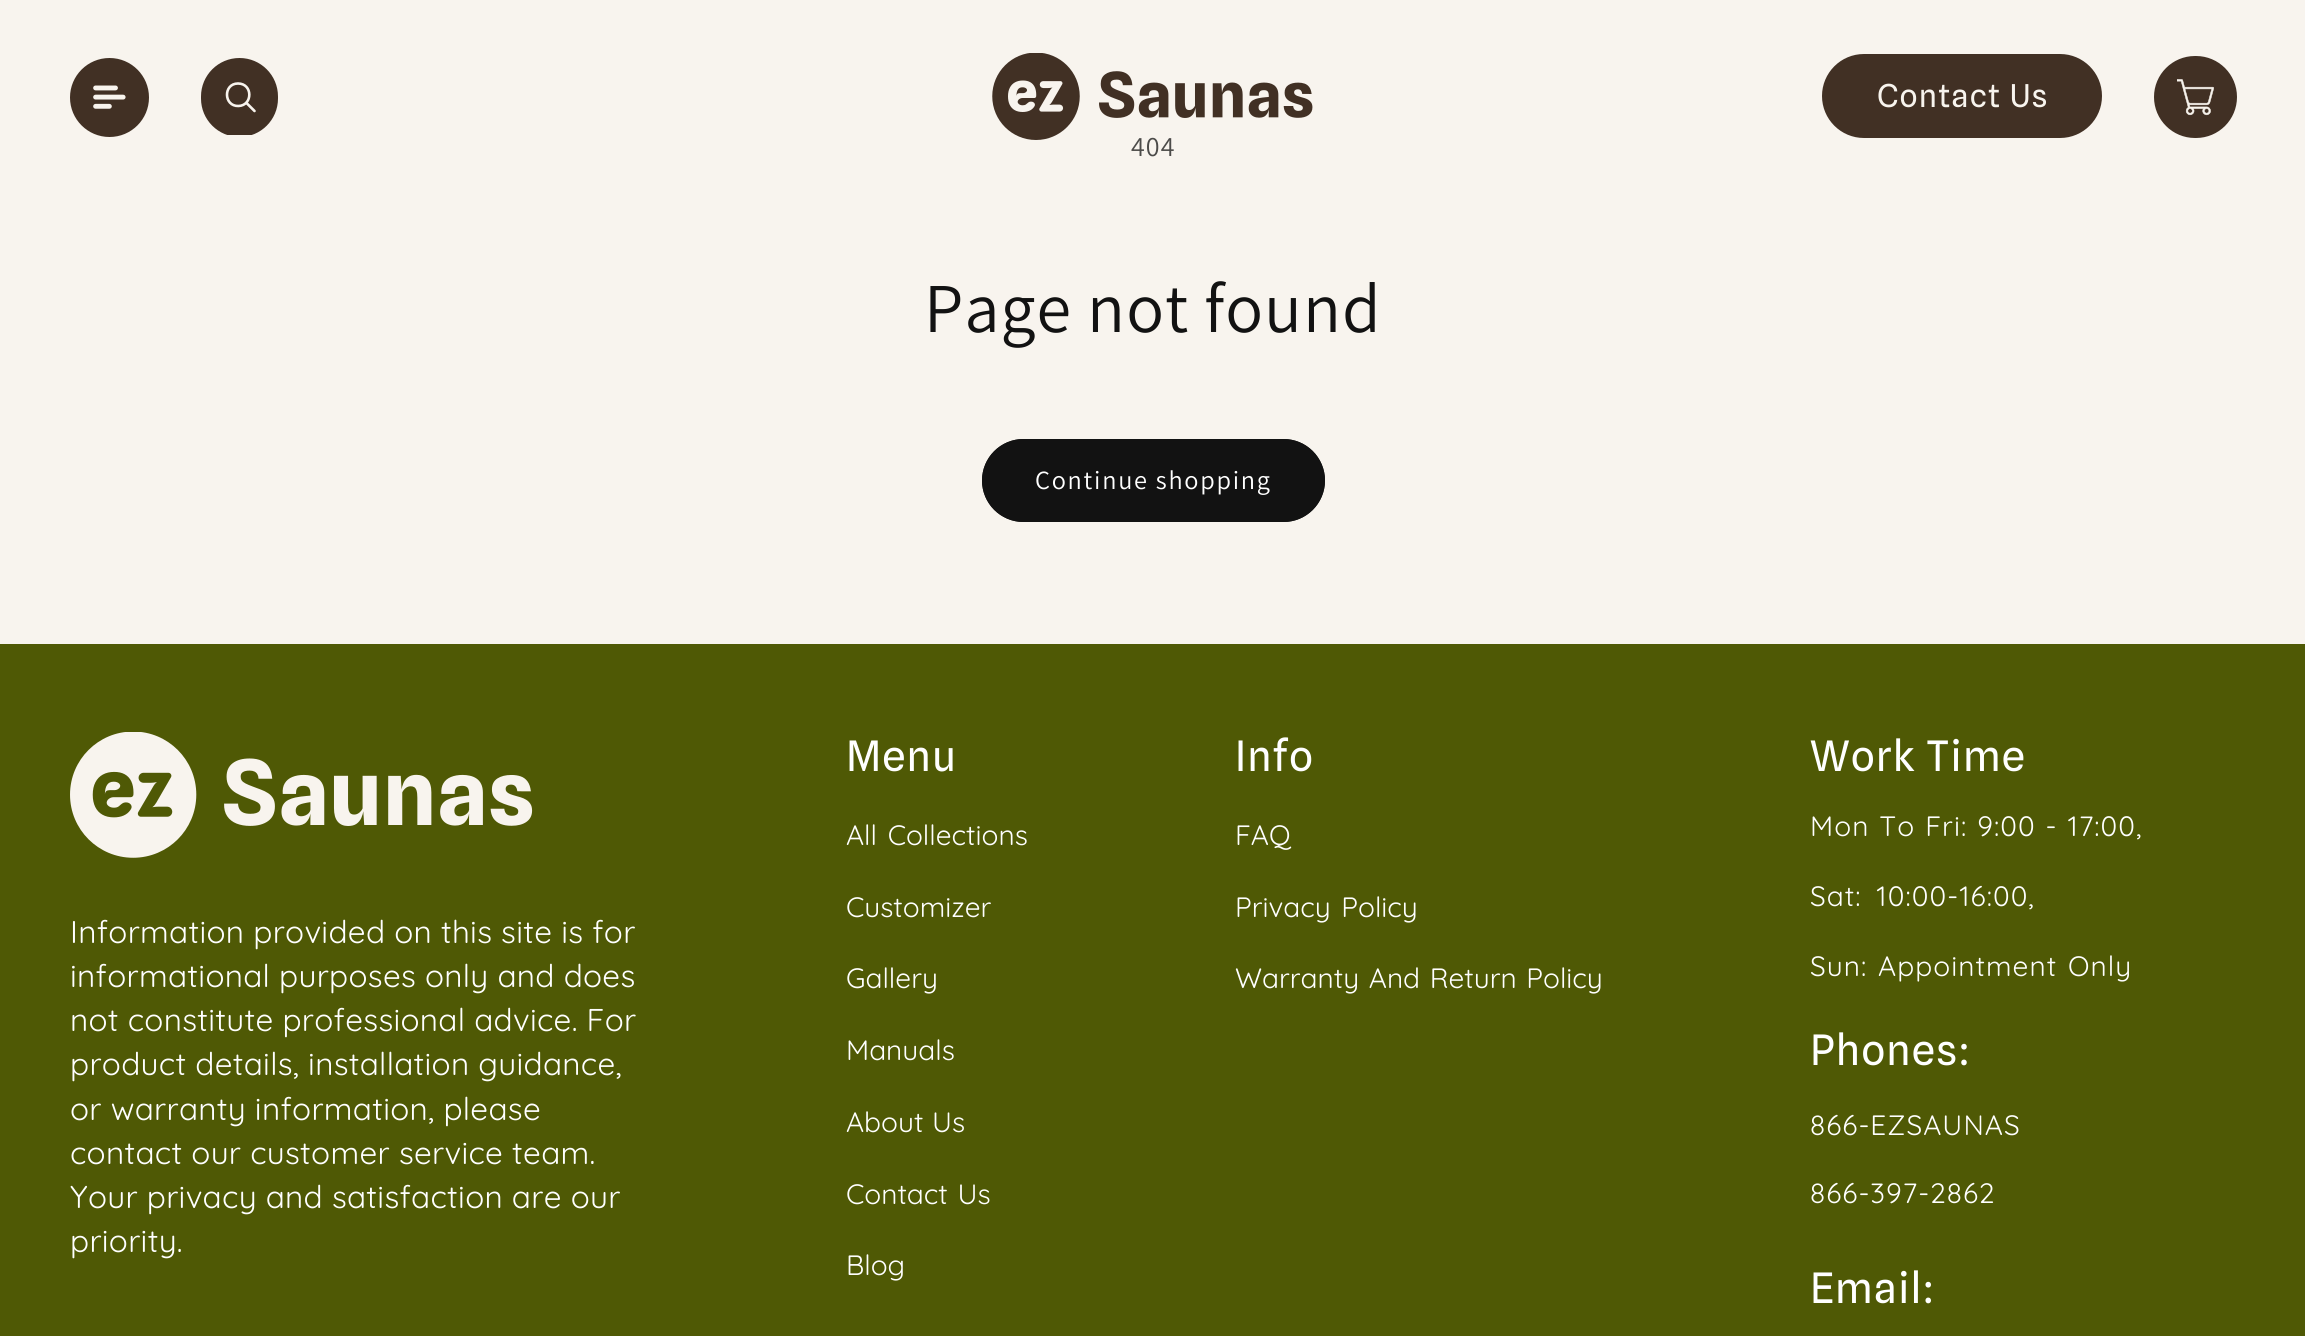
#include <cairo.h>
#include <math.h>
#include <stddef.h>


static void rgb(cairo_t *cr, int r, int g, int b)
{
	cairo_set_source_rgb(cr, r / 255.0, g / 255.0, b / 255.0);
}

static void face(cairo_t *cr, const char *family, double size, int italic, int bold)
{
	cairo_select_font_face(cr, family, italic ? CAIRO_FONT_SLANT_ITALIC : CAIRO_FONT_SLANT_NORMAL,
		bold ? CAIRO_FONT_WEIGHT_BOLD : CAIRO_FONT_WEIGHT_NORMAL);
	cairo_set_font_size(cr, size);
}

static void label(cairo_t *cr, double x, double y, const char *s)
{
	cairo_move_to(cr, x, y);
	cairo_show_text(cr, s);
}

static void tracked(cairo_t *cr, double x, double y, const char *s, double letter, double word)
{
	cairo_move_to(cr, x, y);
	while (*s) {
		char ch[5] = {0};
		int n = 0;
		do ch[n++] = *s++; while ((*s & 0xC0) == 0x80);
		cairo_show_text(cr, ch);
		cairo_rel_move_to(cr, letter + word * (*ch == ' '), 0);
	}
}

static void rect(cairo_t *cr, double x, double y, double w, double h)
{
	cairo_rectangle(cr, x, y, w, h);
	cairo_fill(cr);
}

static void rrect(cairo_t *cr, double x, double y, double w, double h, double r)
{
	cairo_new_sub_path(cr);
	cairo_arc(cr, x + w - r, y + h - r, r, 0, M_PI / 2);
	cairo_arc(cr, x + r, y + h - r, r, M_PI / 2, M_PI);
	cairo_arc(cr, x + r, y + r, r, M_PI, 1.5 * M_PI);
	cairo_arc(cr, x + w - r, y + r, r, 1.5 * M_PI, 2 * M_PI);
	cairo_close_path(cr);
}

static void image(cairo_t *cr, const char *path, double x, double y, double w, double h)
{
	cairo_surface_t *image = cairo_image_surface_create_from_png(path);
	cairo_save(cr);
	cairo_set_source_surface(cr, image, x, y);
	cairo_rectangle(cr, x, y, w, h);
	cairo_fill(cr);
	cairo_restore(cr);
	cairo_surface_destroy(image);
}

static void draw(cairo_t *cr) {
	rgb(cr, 248, 244, 238);
	cairo_paint(cr);
	rgb(cr, 65, 48, 36);
	cairo_arc(cr, 109.5, 97.5, 38.5, 0, 2 * M_PI);
	cairo_fill_preserve(cr);
	cairo_stroke(cr);
	image(cr, "image0.png", 93, 85, 33, 24);
	cairo_save(cr);
	cairo_rectangle(cr, 201, 58, 77, 77);
	cairo_clip(cr);
	rrect(cr, 202, 59, 75, 77, 37.5);
	cairo_fill_preserve(cr);
	cairo_stroke(cr);
	cairo_restore(cr);
	cairo_new_path(cr);
	cairo_move_to(cr, 238, 83.5);
	cairo_curve_to(cr, 223, 83.5, 223.5, 106.5, 238.5, 106);
	cairo_curve_to(cr, 253, 105.5, 253, 83.5, 238, 83.5);
	cairo_close_path(cr);
	rgb(cr, 248, 244, 238);
	cairo_set_line_width(cr, 2.6);
	cairo_stroke(cr);
	cairo_new_path(cr);
	cairo_move_to(cr, 246.5, 103);
	cairo_line_to(cr, 254.5, 111);
	cairo_set_line_cap(cr, CAIRO_LINE_CAP_ROUND);
	cairo_stroke(cr);
	face(cr, "Assistant", 28, 0, 0);
	rgb(cr, 76, 75, 73);
	tracked(cr, 1131, 156, "404", 1.05, 0);
	image(cr, "image1.png", 992, 53, 321, 87);
	rgb(cr, 65, 48, 36);
	rrect(cr, 1823, 55, 278, 82, 41);
	cairo_fill_preserve(cr);
	cairo_set_line_width(cr, 2);
	cairo_set_line_cap(cr, CAIRO_LINE_CAP_BUTT);
	cairo_stroke(cr);
	face(cr, "Spline Sans", 31.5, 0, 0);
	rgb(cr, 248, 244, 238);
	tracked(cr, 1877, 107, "Contact Us", 1.05, 2);
	rgb(cr, 65, 48, 36);
	rrect(cr, 2155, 57, 81, 80, 40);
	cairo_fill_preserve(cr);
	cairo_stroke(cr);
	image(cr, "image2.png", 2177, 79, 37, 37);
	face(cr, "Assistant", 70, 0, 0);
	rgb(cr, 18, 18, 18);
	tracked(cr, 924, 332, "Page not found", 1.05, 0);
	rrect(cr, 982, 439, 343, 83, 41.5);
	cairo_fill(cr);
	rrect(cr, 983, 440, 341, 81, 40.5);
	cairo_stroke(cr);
	face(cr, "Assistant", 26.25, 0, 0);
	rgb(cr, 255, 255, 255);
	tracked(cr, 1035, 489, "Continue shopping", 1.75, 0);
	rgb(cr, 79, 89, 5);
	rect(cr, 0, 644, 2305, 692);
	image(cr, "image3.png", 70, 732, 463, 126);
	face(cr, "Quicksand", 31.5, 0, 0);
	rgb(cr, 255, 255, 255);
	tracked(cr, 70, 943, "Information provided on this site is for", 0.3, 0);
	tracked(cr, 70, 987, "informational purposes only and does", 0.3, 0);
	tracked(cr, 70, 1031, "not constitute professional advice. For", 0.3, 0);
	tracked(cr, 70, 1075, "product details, installation guidance,", 0.3, 0);
	tracked(cr, 70, 1120, "or warranty information, please", 0.3, 0);
	tracked(cr, 70, 1164, "contact our customer service team.", 0.3, 0);
	tracked(cr, 70, 1208, "Your privacy and satisfaction are our", 0.3, 0);
	tracked(cr, 70, 1252, "priority.", 0.3, 0);
	face(cr, "Spline Sans", 42, 0, 0);
	tracked(cr, 846, 771, "Menu", 1.05, 0);
	face(cr, "Quicksand", 28, 0, 0);
	tracked(cr, 846, 845, "All Collections", 0, 3);
	label(cr, 846, 917, "Customizer");
	label(cr, 846, 988, "Gallery");
	label(cr, 846, 1060, "Manuals");
	tracked(cr, 846, 1132, "About Us", 0, 1);
	tracked(cr, 846, 1204, "Contact Us", 0, 2);
	label(cr, 846, 1275, "Blog");
	face(cr, "Spline Sans", 42, 0, 0);
	tracked(cr, 1235, 771, "Info", 1.05, 0);
	face(cr, "Quicksand", 28, 0, 0);
	label(cr, 1235, 845, "FAQ");
	tracked(cr, 1235, 917, "Privacy Policy", 0, 3);
	tracked(cr, 1235, 988, "Warranty And Return Policy", 0, 2);
	face(cr, "Spline Sans", 42, 0, 0);
	tracked(cr, 1810, 771, "Work Time", 1.05, 2);
	face(cr, "Quicksand", 28, 0, 0);
	tracked(cr, 1810, 836, "Mon To Fri: 9:00 - 17:00,", 1.05, 1.25);
	tracked(cr, 1810, 906, "Sat: 10:00-16:00,", 1.05, 6);
	tracked(cr, 1810, 976, "Sun: Appointment Only", 1.05, 2);
	face(cr, "Spline Sans", 42, 0, 0);
	tracked(cr, 1810, 1065, "Phones:", 1.05, 0);
	face(cr, "Quicksand", 28, 0, 0);
	tracked(cr, 1810, 1135, "866-EZSAUNAS", 1.05, 0);
	tracked(cr, 1810, 1203, "866-397-2862", 1.05, 0);
	face(cr, "Spline Sans", 42, 0, 0);
	tracked(cr, 1810, 1303, "Email:", 1.05, 0);
}

int main(void) {
	cairo_surface_t *surface = cairo_image_surface_create(CAIRO_FORMAT_RGB24, 2305, 1336);
	cairo_t *cr = cairo_create(surface);
	cairo_font_options_t *options = cairo_font_options_create();
	cairo_font_options_set_hint_metrics(options, CAIRO_HINT_METRICS_OFF);
	cairo_font_options_set_hint_style(options, CAIRO_HINT_STYLE_NONE);
	cairo_set_font_options(cr, options);
	cairo_set_miter_limit(cr, 4);
	draw(cr);
	cairo_surface_write_to_png(surface, "render.png");
	cairo_font_options_destroy(options);
	cairo_destroy(cr);
	cairo_surface_destroy(surface);
	return 0;
}
